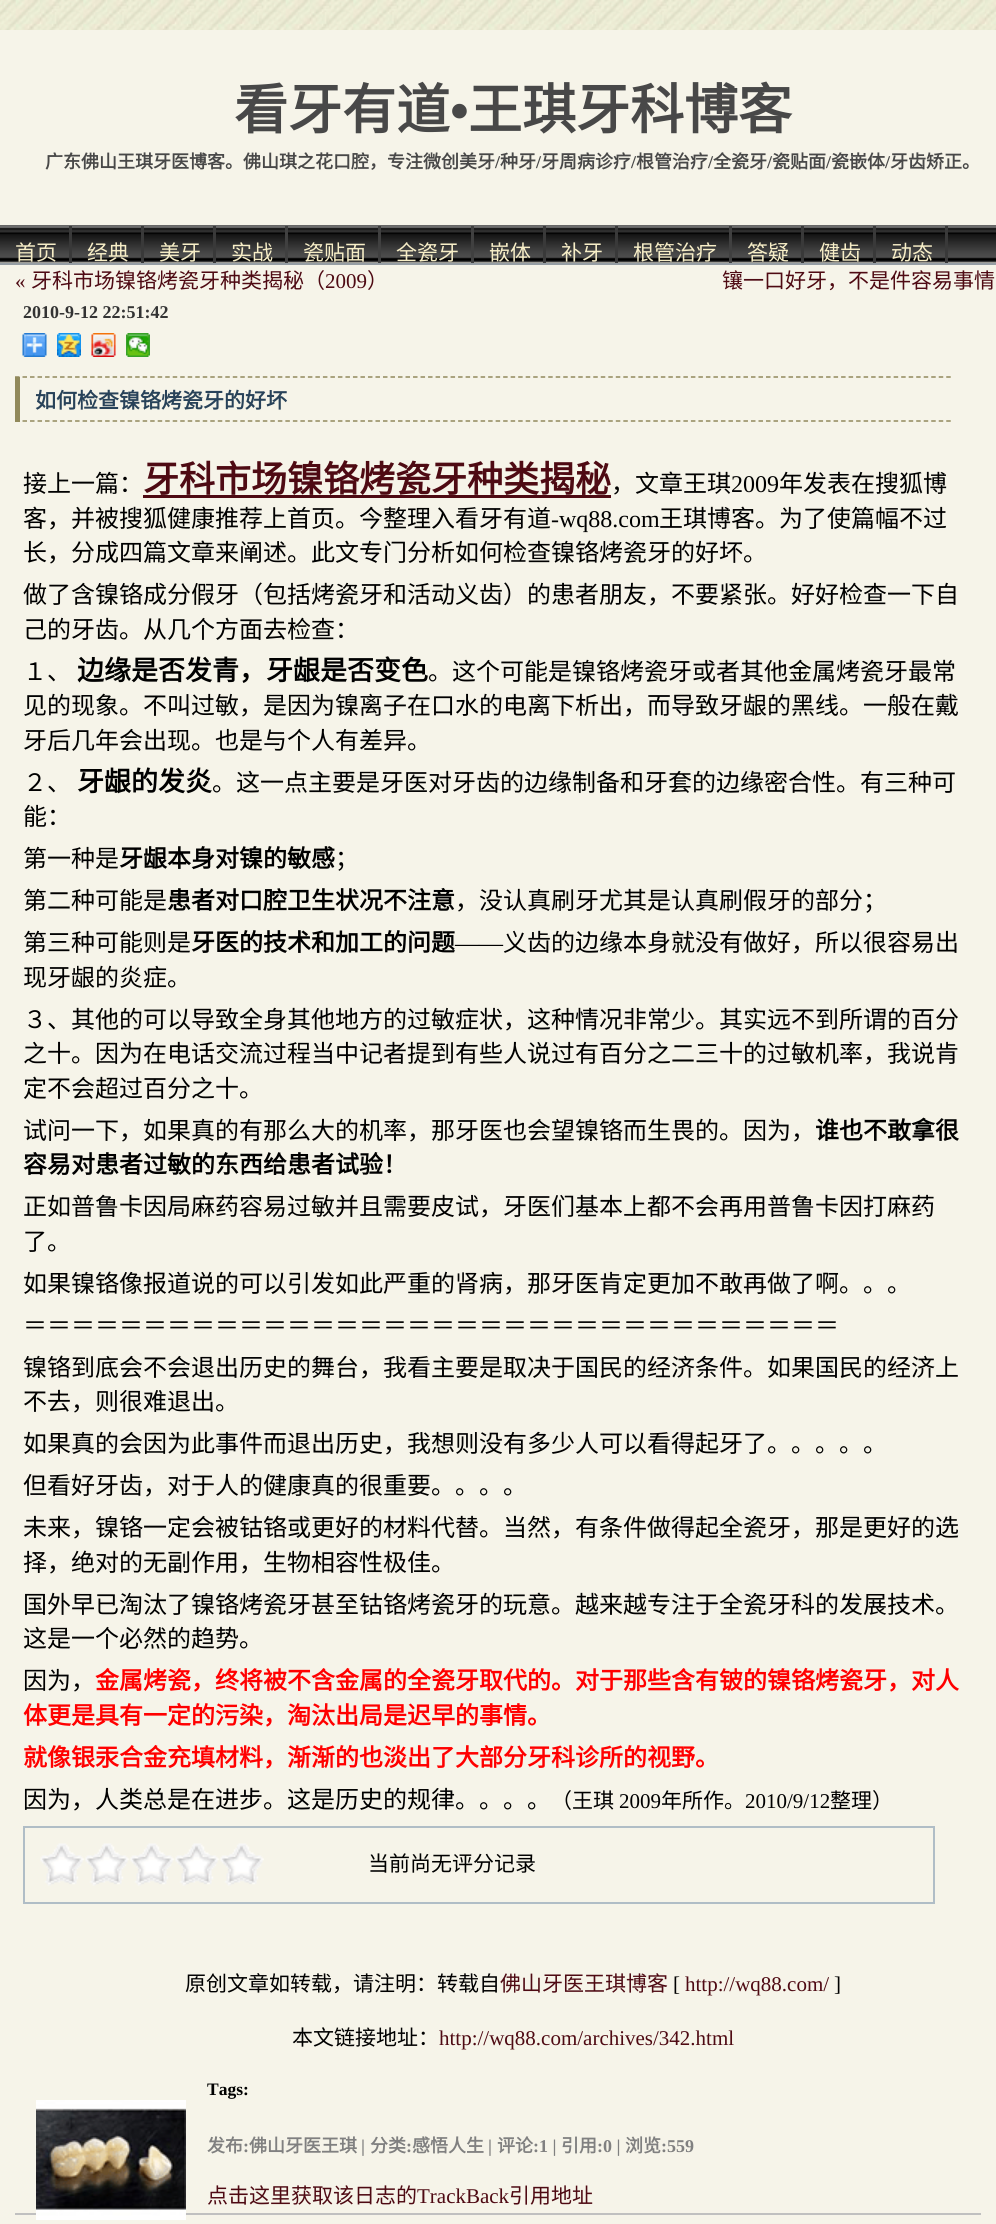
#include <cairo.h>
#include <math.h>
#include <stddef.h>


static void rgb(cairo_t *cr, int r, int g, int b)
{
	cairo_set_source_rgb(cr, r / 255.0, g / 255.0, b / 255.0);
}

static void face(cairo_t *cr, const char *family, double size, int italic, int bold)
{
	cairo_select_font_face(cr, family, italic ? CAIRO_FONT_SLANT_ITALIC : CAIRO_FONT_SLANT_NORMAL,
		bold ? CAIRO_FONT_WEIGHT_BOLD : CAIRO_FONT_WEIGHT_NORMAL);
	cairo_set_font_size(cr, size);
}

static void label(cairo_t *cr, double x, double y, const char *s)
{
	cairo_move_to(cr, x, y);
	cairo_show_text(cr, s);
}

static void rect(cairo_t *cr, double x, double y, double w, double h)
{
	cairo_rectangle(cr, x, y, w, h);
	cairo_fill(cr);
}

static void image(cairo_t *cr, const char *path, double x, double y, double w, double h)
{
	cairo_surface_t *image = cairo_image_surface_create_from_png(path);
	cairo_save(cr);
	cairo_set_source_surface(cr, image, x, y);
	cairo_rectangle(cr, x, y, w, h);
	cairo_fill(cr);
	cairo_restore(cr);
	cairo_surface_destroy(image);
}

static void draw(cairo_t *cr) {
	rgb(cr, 255, 255, 255);
	cairo_paint(cr);
	image(cr, "image0.png", 0, 0, 996, 30);
	rgb(cr, 246, 244, 233);
	rect(cr, 0, 30, 996, 195);
	rgb(cr, 102, 102, 102);
	rect(cr, 0, 225, 996, 2);
	face(cr, "Noto Sans CJK SC", 54, 0, 1);
	rgb(cr, 72, 72, 72);
	label(cr, 234, 129, "看牙有道");
	face(cr, "Liberation Serif", 54, 0, 1);
	label(cr, 450, 129, "•");
	face(cr, "Noto Sans CJK SC", 54, 0, 1);
	label(cr, 468, 129, "王琪牙科博客");
	face(cr, "Noto Sans CJK SC", 18, 0, 1);
	label(cr, 45, 168, "广东佛山王琪牙医博客。佛山琪之花口腔，专注微创美牙");
	face(cr, "Liberation Serif", 18, 0, 1);
	label(cr, 495, 168, "/");
	face(cr, "Noto Sans CJK SC", 18, 0, 1);
	label(cr, 500, 168, "种牙");
	face(cr, "Liberation Serif", 18, 0, 1);
	label(cr, 536, 168, "/");
	face(cr, "Noto Sans CJK SC", 18, 0, 1);
	label(cr, 541, 168, "牙周病诊疗");
	face(cr, "Liberation Serif", 18, 0, 1);
	label(cr, 631, 168, "/");
	face(cr, "Noto Sans CJK SC", 18, 0, 1);
	label(cr, 636, 168, "根管治疗");
	face(cr, "Liberation Serif", 18, 0, 1);
	label(cr, 708, 168, "/");
	face(cr, "Noto Sans CJK SC", 18, 0, 1);
	label(cr, 713, 168, "全瓷牙");
	face(cr, "Liberation Serif", 18, 0, 1);
	label(cr, 767, 168, "/");
	face(cr, "Noto Sans CJK SC", 18, 0, 1);
	label(cr, 772, 168, "瓷贴面");
	face(cr, "Liberation Serif", 18, 0, 1);
	label(cr, 826, 168, "/");
	face(cr, "Noto Sans CJK SC", 18, 0, 1);
	label(cr, 831, 168, "瓷嵌体");
	face(cr, "Liberation Serif", 18, 0, 1);
	label(cr, 885, 168, "/");
	face(cr, "Noto Sans CJK SC", 18, 0, 1);
	label(cr, 890, 168, "牙齿矫正。");
	rgb(cr, 246, 244, 233);
	rect(cr, 0, 262, 996, 1962);
	image(cr, "image1.png", 0, 226, 996, 37);
	rgb(cr, 150, 158, 164);
	rect(cr, 0, 263, 996, 2);
	rgb(cr, 57, 57, 57);
	rect(cr, 69, 226, 3, 37);
	face(cr, "Noto Sans CJK SC", 21, 0, 0);
	rgb(cr, 247, 238, 199);
	label(cr, 15, 260, "首页");
	rgb(cr, 57, 57, 57);
	rect(cr, 141, 226, 3, 37);
	rgb(cr, 247, 238, 199);
	label(cr, 87, 260, "经典");
	rgb(cr, 57, 57, 57);
	rect(cr, 213, 226, 3, 37);
	rgb(cr, 247, 238, 199);
	label(cr, 159, 260, "美牙");
	rgb(cr, 64, 64, 64);
	rect(cr, 285, 226, 3, 37);
	rgb(cr, 247, 238, 199);
	label(cr, 231, 260, "实战");
	rgb(cr, 64, 64, 64);
	rect(cr, 378, 226, 3, 37);
	rgb(cr, 247, 238, 199);
	label(cr, 303, 260, "瓷贴面");
	rgb(cr, 64, 64, 64);
	rect(cr, 471, 226, 3, 37);
	rgb(cr, 247, 238, 199);
	label(cr, 396, 260, "全瓷牙");
	rgb(cr, 57, 57, 57);
	rect(cr, 543, 226, 3, 37);
	rgb(cr, 247, 238, 199);
	label(cr, 489, 260, "嵌体");
	rgb(cr, 57, 57, 57);
	rect(cr, 615, 226, 3, 37);
	rgb(cr, 247, 238, 199);
	label(cr, 561, 260, "补牙");
	rgb(cr, 64, 64, 64);
	rect(cr, 729, 226, 3, 37);
	rgb(cr, 247, 238, 199);
	label(cr, 633, 260, "根管治疗");
	rgb(cr, 57, 57, 57);
	rect(cr, 801, 226, 3, 37);
	rgb(cr, 247, 238, 199);
	label(cr, 747, 260, "答疑");
	rgb(cr, 57, 57, 57);
	rect(cr, 873, 226, 3, 37);
	rgb(cr, 247, 238, 199);
	label(cr, 819, 260, "健齿");
	rgb(cr, 57, 57, 57);
	rect(cr, 945, 226, 3, 37);
	rgb(cr, 247, 238, 199);
	label(cr, 891, 260, "动态");
	face(cr, "Liberation Serif", 21, 0, 0);
	rgb(cr, 78, 10, 19);
	label(cr, 15, 288, "«");
	face(cr, "Noto Sans CJK SC", 21, 0, 0);
	label(cr, 31, 288, "牙科市场镍铬烤瓷牙种类揭秘（");
	face(cr, "Liberation Serif", 21, 0, 0);
	label(cr, 325, 288, "2009");
	face(cr, "Noto Sans CJK SC", 21, 0, 0);
	label(cr, 367, 288, "）");
	label(cr, 722, 288, "镶一口好牙，不是件容易事情");
	face(cr, "Liberation Serif", 18, 0, 1);
	rgb(cr, 51, 51, 51);
	label(cr, 23, 318, "2010-9-12 22:51:42");
	image(cr, "image2.png", 22, 333, 25, 24);
	image(cr, "image3.png", 57, 333, 24, 24);
	image(cr, "image4.png", 91, 333, 25, 24);
	image(cr, "image5.png", 126, 333, 24, 24);
	cairo_new_path(cr);
	cairo_move_to(cr, 15, 377);
	cairo_line_to(cr, 951, 377);
	rgb(cr, 145, 137, 91);
	cairo_set_line_width(cr, 1.5);
	cairo_set_dash(cr, (double[]){4.5, 3.01}, 2, 0);
	cairo_stroke(cr);
	cairo_new_path(cr);
	cairo_move_to(cr, 15, 421);
	cairo_line_to(cr, 951, 421);
	cairo_stroke(cr);
	rect(cr, 15, 377, 5, 45);
	face(cr, "Noto Sans CJK SC", 21, 0, 1);
	rgb(cr, 40, 66, 89);
	label(cr, 35, 408, "如何检查镍铬烤瓷牙的好坏");
	face(cr, "Noto Sans CJK SC", 24, 0, 0);
	rgb(cr, 0, 0, 0);
	label(cr, 23, 492, "接上一篇：");
	face(cr, "Noto Sans CJK SC", 36, 0, 1);
	rgb(cr, 78, 10, 19);
	label(cr, 143, 492, "牙科市场镍铬烤瓷牙种类揭秘");
	rect(cr, 143, 495, 468, 3);
	face(cr, "Noto Sans CJK SC", 24, 0, 0);
	rgb(cr, 0, 0, 0);
	label(cr, 611, 492, "，文章王琪");
	face(cr, "Liberation Serif", 24, 0, 0);
	label(cr, 731, 492, "2009");
	face(cr, "Noto Sans CJK SC", 24, 0, 0);
	label(cr, 779, 492, "年发表在搜狐博");
	label(cr, 23, 527, "客，并被搜狐健康推荐上首页。今整理入看牙有道");
	face(cr, "Liberation Serif", 24, 0, 0);
	label(cr, 551, 527, "-wq88.com");
	face(cr, "Noto Sans CJK SC", 24, 0, 0);
	label(cr, 659, 527, "王琪博客。为了使篇幅不过");
	label(cr, 23, 561, "长，分成四篇文章来阐述。此文专门分析如何检查镍铬烤瓷牙的好坏。");
	label(cr, 23, 603, "做了含镍铬成分假牙（包括烤瓷牙和活动义齿）的患者朋友，不要紧张。好好检查一下自");
	label(cr, 23, 638, "己的牙齿。从几个方面去检查：");
	label(cr, 23, 680, "１、");
	face(cr, "Noto Sans CJK SC", 27, 0, 1);
	label(cr, 77, 680, "边缘是否发青，牙龈是否变色");
	face(cr, "Noto Sans CJK SC", 24, 0, 0);
	label(cr, 428, 680, "。这个可能是镍铬烤瓷牙或者其他金属烤瓷牙最常");
	label(cr, 23, 714, "见的现象。不叫过敏，是因为镍离子在口水的电离下析出，而导致牙龈的黑线。一般在戴");
	label(cr, 23, 749, "牙后几年会出现。也是与个人有差异。");
	label(cr, 23, 791, "２、");
	face(cr, "Noto Sans CJK SC", 27, 0, 1);
	label(cr, 77, 791, "牙龈的发炎");
	face(cr, "Noto Sans CJK SC", 24, 0, 0);
	label(cr, 212, 791, "。这一点主要是牙医对牙齿的边缘制备和牙套的边缘密合性。有三种可");
	label(cr, 23, 825, "能：");
	label(cr, 23, 867, "第一种是");
	face(cr, "Noto Sans CJK SC", 24, 0, 1);
	label(cr, 119, 867, "牙龈本身对镍的敏感");
	face(cr, "Noto Sans CJK SC", 24, 0, 0);
	label(cr, 335, 867, "；");
	label(cr, 23, 909, "第二种可能是");
	face(cr, "Noto Sans CJK SC", 24, 0, 1);
	label(cr, 167, 909, "患者对口腔卫生状况不注意");
	face(cr, "Noto Sans CJK SC", 24, 0, 0);
	label(cr, 455, 909, "，没认真刷牙尤其是认真刷假牙的部分；");
	label(cr, 23, 951, "第三种可能则是");
	face(cr, "Noto Sans CJK SC", 24, 0, 1);
	label(cr, 191, 951, "牙医的技术和加工的问题");
	face(cr, "Liberation Serif", 24, 0, 0);
	label(cr, 455, 951, "——");
	face(cr, "Noto Sans CJK SC", 24, 0, 0);
	label(cr, 503, 951, "义齿的边缘本身就没有做好，所以很容易出");
	label(cr, 23, 986, "现牙龈的炎症。");
	label(cr, 23, 1028, "３、其他的可以导致全身其他地方的过敏症状，这种情况非常少。其实远不到所谓的百分");
	label(cr, 23, 1062, "之十。因为在电话交流过程当中记者提到有些人说过有百分之二三十的过敏机率，我说肯");
	label(cr, 23, 1097, "定不会超过百分之十。");
	label(cr, 23, 1139, "试问一下，如果真的有那么大的机率，那牙医也会望镍铬而生畏的。因为，");
	face(cr, "Noto Sans CJK SC", 24, 0, 1);
	label(cr, 815, 1139, "谁也不敢拿很");
	label(cr, 23, 1173, "容易对患者过敏的东西给患者试验！");
	face(cr, "Noto Sans CJK SC", 24, 0, 0);
	label(cr, 23, 1215, "正如普鲁卡因局麻药容易过敏并且需要皮试，牙医们基本上都不会再用普鲁卡因打麻药");
	label(cr, 23, 1250, "了。");
	label(cr, 23, 1292, "如果镍铬像报道说的可以引发如此严重的肾病，那牙医肯定更加不敢再做了啊。。。");
	label(cr, 23, 1334, "＝＝＝＝＝＝＝＝＝＝＝＝＝＝＝＝＝＝＝＝＝＝＝＝＝＝＝＝＝＝＝＝＝＝");
	label(cr, 23, 1376, "镍铬到底会不会退出历史的舞台，我看主要是取决于国民的经济条件。如果国民的经济上");
	label(cr, 23, 1410, "不去，则很难退出。");
	label(cr, 23, 1452, "如果真的会因为此事件而退出历史，我想则没有多少人可以看得起牙了。。。。。");
	label(cr, 23, 1494, "但看好牙齿，对于人的健康真的很重要。。。。");
	label(cr, 23, 1536, "未来，镍铬一定会被钴铬或更好的材料代替。当然，有条件做得起全瓷牙，那是更好的选");
	label(cr, 23, 1571, "择，绝对的无副作用，生物相容性极佳。");
	label(cr, 23, 1613, "国外早已淘汰了镍铬烤瓷牙甚至钴铬烤瓷牙的玩意。越来越专注于全瓷牙科的发展技术。");
	label(cr, 23, 1647, "这是一个必然的趋势。");
	label(cr, 23, 1689, "因为，");
	face(cr, "Noto Sans CJK SC", 24, 0, 1);
	rgb(cr, 255, 0, 0);
	label(cr, 95, 1689, "金属烤瓷，终将被不含金属的全瓷牙取代的。对于那些含有铍的镍铬烤瓷牙，对人");
	label(cr, 23, 1724, "体更是具有一定的污染，淘汰出局是迟早的事情。");
	label(cr, 23, 1766, "就像银汞合金充填材料，渐渐的也淡出了大部分牙科诊所的视野。");
	face(cr, "Noto Sans CJK SC", 24, 0, 0);
	rgb(cr, 0, 0, 0);
	label(cr, 23, 1808, "因为，人类总是在进步。这是历史的规律。。。。");
	face(cr, "Noto Sans CJK SC", 21, 0, 0);
	label(cr, 551, 1808, "（王琪");
	face(cr, "Liberation Serif", 21, 0, 0);
	label(cr, 619, 1808, "2009");
	face(cr, "Noto Sans CJK SC", 21, 0, 0);
	label(cr, 661, 1808, "年所作。");
	face(cr, "Liberation Serif", 21, 0, 0);
	label(cr, 745, 1808, "2010/9/12");
	face(cr, "Noto Sans CJK SC", 21, 0, 0);
	label(cr, 830, 1808, "整理）");
	cairo_rectangle(cr, 24, 1827, 910, 76);
	rgb(cr, 176, 189, 198);
	cairo_set_line_width(cr, 2);
	cairo_set_dash(cr, NULL, 0, 0);
	cairo_stroke(cr);
	image(cr, "image6.png", 40, 1843, 224, 43);
	rgb(cr, 0, 0, 0);
	label(cr, 368, 1871, "当前尚无评分记录");
	label(cr, 185, 1991, "原创文章如转载，请注明：转载自");
	rgb(cr, 78, 10, 19);
	label(cr, 500, 1991, "佛山牙医王琪博客");
	face(cr, "Liberation Serif", 21, 0, 0);
	rgb(cr, 0, 0, 0);
	label(cr, 673, 1991, "[");
	rgb(cr, 78, 10, 19);
	label(cr, 685, 1991, "http://wq88.com/");
	rgb(cr, 0, 0, 0);
	label(cr, 834, 1991, "]");
	face(cr, "Noto Sans CJK SC", 21, 0, 0);
	label(cr, 292, 2045, "本文链接地址：");
	face(cr, "Liberation Serif", 21, 0, 0);
	rgb(cr, 78, 10, 19);
	label(cr, 439, 2045, "http://wq88.com/archives/342.html");
	face(cr, "Liberation Serif", 17.5, 0, 1);
	rgb(cr, 0, 0, 0);
	label(cr, 207, 2095, "Tags:");
	rgb(cr, 192, 192, 192);
	rect(cr, 15, 2213, 966, 2);
	image(cr, "image7.png", 36, 2100, 150, 120);
	face(cr, "Noto Sans CJK SC", 18, 0, 1);
	rgb(cr, 128, 128, 128);
	label(cr, 207, 2152, "发布");
	face(cr, "Liberation Serif", 18, 0, 1);
	label(cr, 243, 2152, ":");
	face(cr, "Noto Sans CJK SC", 18, 0, 1);
	label(cr, 249, 2152, "佛山牙医王琪");
	face(cr, "Liberation Serif", 18, 0, 1);
	label(cr, 361, 2152, "|");
	face(cr, "Noto Sans CJK SC", 18, 0, 1);
	label(cr, 370, 2152, "分类");
	face(cr, "Liberation Serif", 18, 0, 1);
	label(cr, 406, 2152, ":");
	face(cr, "Noto Sans CJK SC", 18, 0, 1);
	label(cr, 412, 2152, "感悟人生");
	face(cr, "Liberation Serif", 18, 0, 1);
	label(cr, 488, 2152, "|");
	face(cr, "Noto Sans CJK SC", 18, 0, 1);
	label(cr, 497, 2152, "评论");
	face(cr, "Liberation Serif", 18, 0, 1);
	label(cr, 533, 2152, ":1 |");
	face(cr, "Noto Sans CJK SC", 18, 0, 1);
	label(cr, 561, 2152, "引用");
	face(cr, "Liberation Serif", 18, 0, 1);
	label(cr, 597, 2152, ":0 |");
	face(cr, "Noto Sans CJK SC", 18, 0, 1);
	label(cr, 625, 2152, "浏览");
	face(cr, "Liberation Serif", 18, 0, 1);
	label(cr, 661, 2152, ":559");
	face(cr, "Noto Sans CJK SC", 21, 0, 0);
	rgb(cr, 78, 10, 19);
	label(cr, 207, 2203, "点击这里获取该日志的");
	face(cr, "Liberation Serif", 21, 0, 0);
	label(cr, 417, 2203, "TrackBack");
	face(cr, "Noto Sans CJK SC", 21, 0, 0);
	label(cr, 509, 2203, "引用地址");
}

int main(void) {
	cairo_surface_t *surface = cairo_image_surface_create(CAIRO_FORMAT_RGB24, 996, 2224);
	cairo_t *cr = cairo_create(surface);
	cairo_font_options_t *options = cairo_font_options_create();
	cairo_font_options_set_hint_metrics(options, CAIRO_HINT_METRICS_OFF);
	cairo_font_options_set_hint_style(options, CAIRO_HINT_STYLE_NONE);
	cairo_set_font_options(cr, options);
	cairo_set_miter_limit(cr, 4);
	draw(cr);
	cairo_surface_write_to_png(surface, "render.png");
	cairo_font_options_destroy(options);
	cairo_destroy(cr);
	cairo_surface_destroy(surface);
	return 0;
}
